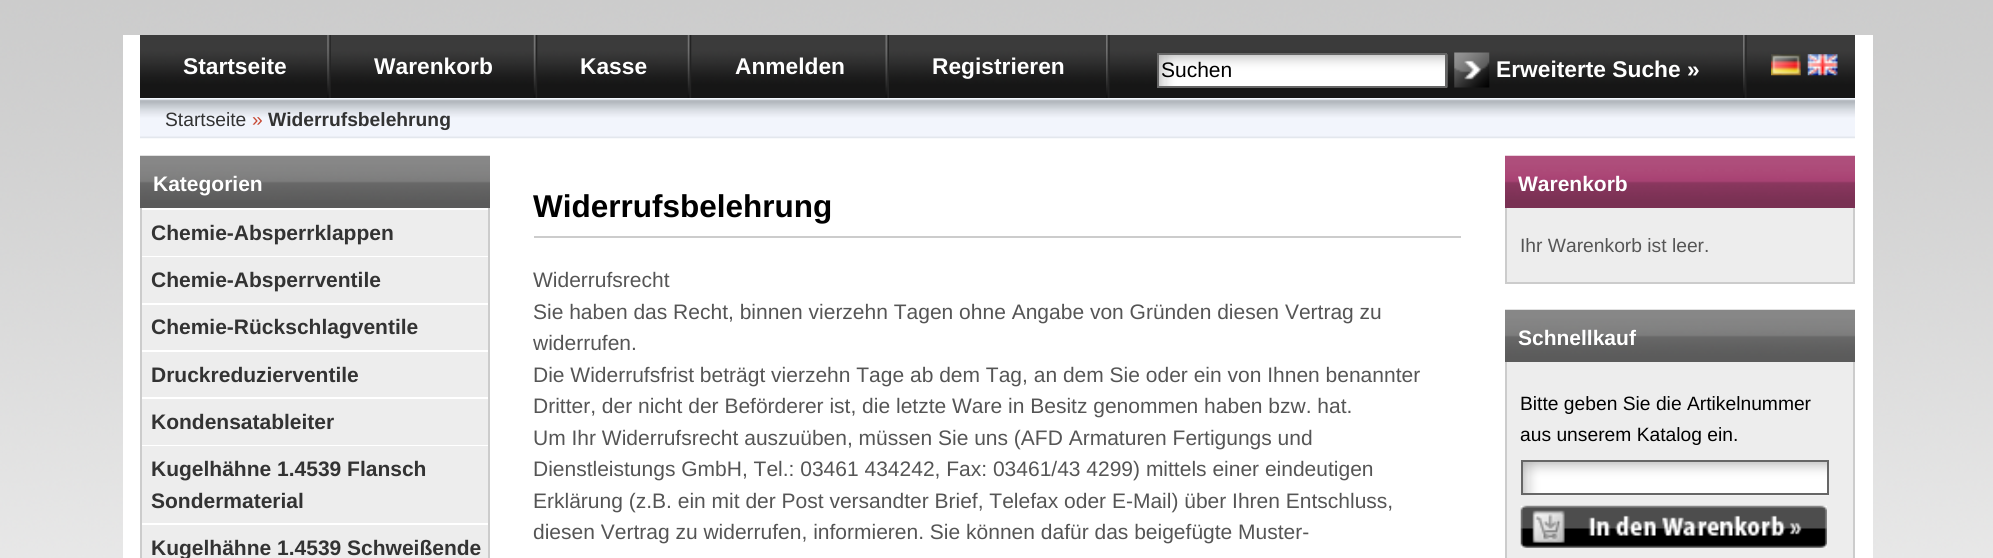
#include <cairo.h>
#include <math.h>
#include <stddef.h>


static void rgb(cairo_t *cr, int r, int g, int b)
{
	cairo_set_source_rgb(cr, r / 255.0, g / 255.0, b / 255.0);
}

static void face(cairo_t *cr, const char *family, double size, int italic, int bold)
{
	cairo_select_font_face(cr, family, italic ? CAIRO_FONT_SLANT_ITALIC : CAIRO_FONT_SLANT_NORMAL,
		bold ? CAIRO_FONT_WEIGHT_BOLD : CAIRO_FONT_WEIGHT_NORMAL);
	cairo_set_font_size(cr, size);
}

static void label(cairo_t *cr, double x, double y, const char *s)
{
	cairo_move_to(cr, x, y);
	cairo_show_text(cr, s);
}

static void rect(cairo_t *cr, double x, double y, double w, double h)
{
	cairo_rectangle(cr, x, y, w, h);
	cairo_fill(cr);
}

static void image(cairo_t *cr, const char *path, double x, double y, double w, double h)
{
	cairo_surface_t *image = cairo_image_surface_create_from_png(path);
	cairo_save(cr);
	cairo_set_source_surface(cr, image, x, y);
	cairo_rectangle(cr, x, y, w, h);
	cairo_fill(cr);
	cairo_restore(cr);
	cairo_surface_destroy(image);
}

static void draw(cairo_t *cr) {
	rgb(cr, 255, 255, 255);
	cairo_paint(cr);
	image(cr, "image0.png", 0, 0, 1993, 558);
	rgb(cr, 255, 255, 255);
	rect(cr, 140, 138, 1715, 420);
	rect(cr, 1855, 35, 18, 523);
	rect(cr, 123, 35, 17, 523);
	image(cr, "image1.png", 140, 35, 1715, 63);
	image(cr, "image2.png", 327, 35, 4, 63);
	face(cr, "Liberation Sans", 22.75, 0, 1);
	label(cr, 183, 74, "Startseite");
	image(cr, "image3.png", 533, 35, 5, 63);
	label(cr, 374, 74, "Warenkorb");
	image(cr, "image4.png", 687, 35, 5, 63);
	label(cr, 580, 74, "Kasse");
	image(cr, "image5.png", 885, 35, 4, 63);
	label(cr, 735, 74, "Anmelden");
	image(cr, "image6.png", 1106, 35, 4, 63);
	label(cr, 932, 74, "Registrieren");
	image(cr, "image7.png", 1743, 35, 4, 63);
	image(cr, "image8.png", 1159, 54, 289, 34);
	cairo_rectangle(cr, 1158, 54, 288, 33);
	rgb(cr, 102, 102, 102);
	cairo_stroke(cr);
	face(cr, "Liberation Sans", 21, 0, 0);
	rgb(cr, 0, 0, 0);
	label(cr, 1161, 77, "Suchen");
	image(cr, "image9.png", 1454, 52, 36, 36);
	face(cr, "Liberation Sans", 22.75, 0, 1);
	rgb(cr, 255, 255, 255);
	label(cr, 1496, 77, "Erweiterte Suche »");
	image(cr, "image10.png", 1771, 54, 30, 22);
	image(cr, "image11.png", 1807, 54, 31, 22);
	image(cr, "image12.png", 140, 98, 1715, 41);
	face(cr, "Liberation Sans", 19.25, 0, 0);
	rgb(cr, 51, 51, 51);
	label(cr, 165, 126, "Startseite");
	rgb(cr, 198, 73, 52);
	label(cr, 252, 126, "»");
	face(cr, "Liberation Sans", 19.25, 0, 1);
	rgb(cr, 51, 51, 51);
	label(cr, 268, 126, "Widerrufsbelehrung");
	image(cr, "image13.png", 140, 155, 350, 53);
	face(cr, "Liberation Sans", 21, 0, 1);
	rgb(cr, 255, 255, 255);
	label(cr, 153, 191, "Kategorien");
	rgb(cr, 237, 237, 237);
	rect(cr, 142, 210, 346, 348);
	rgb(cr, 204, 204, 204);
	rect(cr, 488, 208, 2, 350);
	rect(cr, 140, 208, 2, 350);
	rgb(cr, 51, 51, 51);
	label(cr, 151, 240, "Chemie-Absperrklappen");
	rgb(cr, 255, 255, 255);
	rect(cr, 142, 256, 346, 1);
	rgb(cr, 51, 51, 51);
	label(cr, 151, 287, "Chemie-Absperrventile");
	rgb(cr, 255, 255, 255);
	rect(cr, 142, 303, 346, 2);
	rgb(cr, 51, 51, 51);
	label(cr, 151, 334, "Chemie-Rückschlagventile");
	rgb(cr, 255, 255, 255);
	rect(cr, 142, 350, 346, 2);
	rgb(cr, 51, 51, 51);
	label(cr, 151, 382, "Druckreduzierventile");
	rgb(cr, 255, 255, 255);
	rect(cr, 142, 397, 346, 2);
	rgb(cr, 51, 51, 51);
	label(cr, 151, 429, "Kondensatableiter");
	rgb(cr, 255, 255, 255);
	rect(cr, 142, 445, 346, 1);
	rgb(cr, 51, 51, 51);
	label(cr, 151, 476, "Kugelhähne 1.4539 Flansch");
	label(cr, 151, 508, "Sondermaterial");
	rgb(cr, 255, 255, 255);
	rect(cr, 142, 523, 346, 2);
	rgb(cr, 51, 51, 51);
	label(cr, 151, 555, "Kugelhähne 1.4539 Schweißende");
	rgb(cr, 204, 204, 204);
	rect(cr, 534, 236, 927, 2);
	face(cr, "Liberation Sans", 31.5, 0, 1);
	rgb(cr, 0, 0, 0);
	label(cr, 533, 217, "Widerrufsbelehrung");
	face(cr, "Liberation Sans", 21, 0, 0);
	rgb(cr, 85, 85, 85);
	label(cr, 533, 287, "Widerrufsrecht");
	label(cr, 533, 319, "Sie haben das Recht, binnen vierzehn Tagen ohne Angabe von Gründen diesen Vertrag zu");
	label(cr, 533, 350, "widerrufen.");
	label(cr, 533, 382, "Die Widerrufsfrist beträgt vierzehn Tage ab dem Tag, an dem Sie oder ein von Ihnen benannter");
	label(cr, 533, 413, "Dritter, der nicht der Beförderer ist, die letzte Ware in Besitz genommen haben bzw. hat.");
	label(cr, 533, 445, "Um Ihr Widerrufsrecht auszuüben, müssen Sie uns (AFD Armaturen Fertigungs und");
	label(cr, 533, 476, "Dienstleistungs GmbH, Tel.: 03461 434242, Fax: 03461/43 4299) mittels einer eindeutigen");
	label(cr, 533, 508, "Erklärung (z.B. ein mit der Post versandter Brief, Telefax oder E-Mail) über Ihren Entschluss,");
	label(cr, 533, 539, "diesen Vertrag zu widerrufen, informieren. Sie können dafür das beigefügte Muster-");
	image(cr, "image14.png", 1505, 155, 350, 53);
	face(cr, "Liberation Sans", 21, 0, 1);
	rgb(cr, 255, 255, 255);
	label(cr, 1518, 191, "Warenkorb");
	rgb(cr, 237, 237, 237);
	rect(cr, 1507, 208, 346, 74);
	rgb(cr, 204, 204, 204);
	rect(cr, 1853, 208, 2, 76);
	rect(cr, 1505, 282, 350, 2);
	rect(cr, 1505, 208, 2, 76);
	face(cr, "Liberation Sans", 19.25, 0, 0);
	rgb(cr, 85, 85, 85);
	label(cr, 1520, 252, "Ihr Warenkorb ist leer.");
	image(cr, "image13.png", 1505, 309, 350, 53);
	face(cr, "Liberation Sans", 21, 0, 1);
	rgb(cr, 255, 255, 255);
	label(cr, 1518, 345, "Schnellkauf");
	rgb(cr, 237, 237, 237);
	rect(cr, 1507, 362, 346, 196);
	rgb(cr, 204, 204, 204);
	rect(cr, 1853, 362, 2, 196);
	rect(cr, 1505, 362, 2, 196);
	face(cr, "Liberation Sans", 19.25, 0, 0);
	rgb(cr, 0, 0, 0);
	label(cr, 1520, 410, "Bitte geben Sie die Artikelnummer");
	label(cr, 1520, 441, "aus unserem Katalog ein.");
	image(cr, "image15.png", 1522, 462, 307, 34);
	cairo_rectangle(cr, 1522, 461, 306, 33);
	rgb(cr, 102, 102, 102);
	cairo_stroke(cr);
	image(cr, "image16.png", 1520, 505, 307, 43);
}

int main(void) {
	cairo_surface_t *surface = cairo_image_surface_create(CAIRO_FORMAT_RGB24, 1993, 558);
	cairo_t *cr = cairo_create(surface);
	cairo_font_options_t *options = cairo_font_options_create();
	cairo_font_options_set_hint_metrics(options, CAIRO_HINT_METRICS_OFF);
	cairo_font_options_set_hint_style(options, CAIRO_HINT_STYLE_NONE);
	cairo_set_font_options(cr, options);
	cairo_set_miter_limit(cr, 4);
	draw(cr);
	cairo_surface_write_to_png(surface, "render.png");
	cairo_font_options_destroy(options);
	cairo_destroy(cr);
	cairo_surface_destroy(surface);
	return 0;
}
